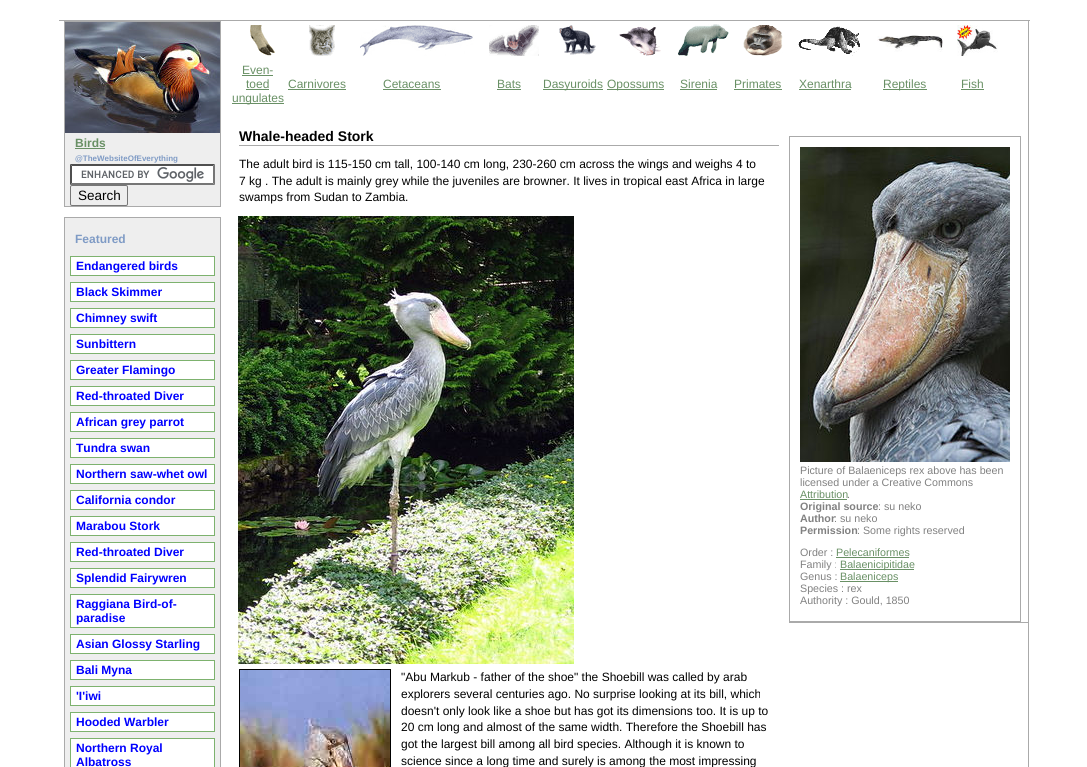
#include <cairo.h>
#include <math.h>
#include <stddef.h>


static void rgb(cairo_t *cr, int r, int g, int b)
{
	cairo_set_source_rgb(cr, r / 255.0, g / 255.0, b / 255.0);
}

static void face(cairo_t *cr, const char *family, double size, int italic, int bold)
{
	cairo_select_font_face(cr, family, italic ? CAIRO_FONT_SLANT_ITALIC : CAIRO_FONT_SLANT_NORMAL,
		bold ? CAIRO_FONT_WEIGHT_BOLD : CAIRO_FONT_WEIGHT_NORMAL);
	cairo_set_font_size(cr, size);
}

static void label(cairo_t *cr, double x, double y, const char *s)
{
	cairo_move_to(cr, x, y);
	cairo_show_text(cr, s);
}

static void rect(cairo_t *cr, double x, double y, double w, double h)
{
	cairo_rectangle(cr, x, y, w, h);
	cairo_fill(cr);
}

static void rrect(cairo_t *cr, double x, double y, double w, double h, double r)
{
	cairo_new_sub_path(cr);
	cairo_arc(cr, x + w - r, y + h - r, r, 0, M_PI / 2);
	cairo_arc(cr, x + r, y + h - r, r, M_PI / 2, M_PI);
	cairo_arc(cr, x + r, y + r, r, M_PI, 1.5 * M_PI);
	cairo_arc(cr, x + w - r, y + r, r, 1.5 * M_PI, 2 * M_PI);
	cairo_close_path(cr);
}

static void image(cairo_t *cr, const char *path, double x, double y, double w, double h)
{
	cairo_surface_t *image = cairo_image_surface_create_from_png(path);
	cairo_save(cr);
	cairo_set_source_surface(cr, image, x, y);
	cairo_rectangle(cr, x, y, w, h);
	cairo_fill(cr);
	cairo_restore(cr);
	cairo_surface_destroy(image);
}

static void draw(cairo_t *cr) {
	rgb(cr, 255, 255, 255);
	cairo_paint(cr);
	rgb(cr, 170, 170, 170);
	rect(cr, 1028, 20, 1, 747);
	rect(cr, 59, 20, 971, 1);
	rgb(cr, 238, 238, 238);
	rect(cr, 65, 133, 155, 73);
	cairo_rectangle(cr, 64.5, 21.5, 156, 185);
	rgb(cr, 170, 170, 170);
	cairo_set_line_width(cr, 1);
	cairo_stroke(cr);
	image(cr, "image0.png", 65, 22, 155, 111);
	face(cr, "Liberation Sans", 12, 0, 1);
	rgb(cr, 105, 144, 101);
	label(cr, 75, 147, "Birds");
	rect(cr, 75, 148, 30, 1);
	face(cr, "Liberation Sans", 8, 0, 1);
	rgb(cr, 127, 155, 197);
	label(cr, 75, 161, "@TheWebsiteOfEverything");
	rgb(cr, 255, 255, 255);
	rect(cr, 70, 164, 145, 21);
	image(cr, "image1.png", 81, 167, 123, 15);
	rgb(cr, 79, 79, 79);
	cairo_new_path(cr);
	cairo_move_to(cr, 70, 164);
	cairo_line_to(cr, 215, 164);
	cairo_line_to(cr, 213, 166);
	cairo_line_to(cr, 72, 166);
	cairo_close_path(cr);
	cairo_fill(cr);
	rgb(cr, 118, 118, 118);
	cairo_new_path(cr);
	cairo_move_to(cr, 215, 164);
	cairo_line_to(cr, 215, 185);
	cairo_line_to(cr, 213, 183);
	cairo_line_to(cr, 213, 166);
	cairo_close_path(cr);
	cairo_fill(cr);
	cairo_new_path(cr);
	cairo_move_to(cr, 215, 185);
	cairo_line_to(cr, 70, 185);
	cairo_line_to(cr, 72, 183);
	cairo_line_to(cr, 213, 183);
	cairo_close_path(cr);
	cairo_fill(cr);
	rgb(cr, 79, 79, 79);
	cairo_new_path(cr);
	cairo_move_to(cr, 70, 185);
	cairo_line_to(cr, 70, 164);
	cairo_line_to(cr, 72, 166);
	cairo_line_to(cr, 72, 183);
	cairo_close_path(cr);
	cairo_fill(cr);
	rrect(cr, 70.5, 185.5, 57, 20, 1.5);
	rgb(cr, 118, 118, 118);
	cairo_stroke(cr);
	face(cr, "Liberation Sans", 13.5, 0, 0);
	rgb(cr, 0, 0, 0);
	label(cr, 78, 200, "Search");
	rgb(cr, 238, 238, 238);
	cairo_rectangle(cr, 64.5, 217.5, 156, 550);
	cairo_fill_preserve(cr);
	rgb(cr, 170, 170, 170);
	cairo_stroke(cr);
	face(cr, "Liberation Sans", 12, 0, 1);
	rgb(cr, 127, 155, 197);
	label(cr, 75, 243, "Featured");
	rgb(cr, 255, 255, 255);
	cairo_rectangle(cr, 70.5, 256.5, 144, 19);
	cairo_fill_preserve(cr);
	rgb(cr, 125, 178, 110);
	cairo_stroke(cr);
	rgb(cr, 0, 0, 255);
	label(cr, 76, 270, "Endangered birds");
	rgb(cr, 255, 255, 255);
	cairo_rectangle(cr, 70.5, 282.5, 144, 19);
	cairo_fill_preserve(cr);
	rgb(cr, 125, 178, 110);
	cairo_stroke(cr);
	rgb(cr, 0, 0, 255);
	label(cr, 76, 296, "Black Skimmer");
	rgb(cr, 255, 255, 255);
	cairo_rectangle(cr, 70.5, 308.5, 144, 19);
	cairo_fill_preserve(cr);
	rgb(cr, 125, 178, 110);
	cairo_stroke(cr);
	rgb(cr, 0, 0, 255);
	label(cr, 76, 322, "Chimney swift");
	rgb(cr, 255, 255, 255);
	cairo_rectangle(cr, 70.5, 334.5, 144, 19);
	cairo_fill_preserve(cr);
	rgb(cr, 125, 178, 110);
	cairo_stroke(cr);
	rgb(cr, 0, 0, 255);
	label(cr, 76, 348, "Sunbittern");
	rgb(cr, 255, 255, 255);
	cairo_rectangle(cr, 70.5, 360.5, 144, 19);
	cairo_fill_preserve(cr);
	rgb(cr, 125, 178, 110);
	cairo_stroke(cr);
	rgb(cr, 0, 0, 255);
	label(cr, 76, 374, "Greater Flamingo");
	rgb(cr, 255, 255, 255);
	cairo_rectangle(cr, 70.5, 386.5, 144, 19);
	cairo_fill_preserve(cr);
	rgb(cr, 125, 178, 110);
	cairo_stroke(cr);
	rgb(cr, 0, 0, 255);
	label(cr, 76, 400, "Red-throated Diver");
	rgb(cr, 255, 255, 255);
	cairo_rectangle(cr, 70.5, 412.5, 144, 19);
	cairo_fill_preserve(cr);
	rgb(cr, 125, 178, 110);
	cairo_stroke(cr);
	rgb(cr, 0, 0, 255);
	label(cr, 76, 426, "African grey parrot");
	rgb(cr, 255, 255, 255);
	cairo_rectangle(cr, 70.5, 438.5, 144, 19);
	cairo_fill_preserve(cr);
	rgb(cr, 125, 178, 110);
	cairo_stroke(cr);
	rgb(cr, 0, 0, 255);
	label(cr, 76, 452, "Tundra swan");
	rgb(cr, 255, 255, 255);
	cairo_rectangle(cr, 70.5, 464.5, 144, 19);
	cairo_fill_preserve(cr);
	rgb(cr, 125, 178, 110);
	cairo_stroke(cr);
	rgb(cr, 0, 0, 255);
	label(cr, 76, 478, "Northern saw-whet owl");
	rgb(cr, 255, 255, 255);
	cairo_rectangle(cr, 70.5, 490.5, 144, 19);
	cairo_fill_preserve(cr);
	rgb(cr, 125, 178, 110);
	cairo_stroke(cr);
	rgb(cr, 0, 0, 255);
	label(cr, 76, 504, "California condor");
	rgb(cr, 255, 255, 255);
	cairo_rectangle(cr, 70.5, 516.5, 144, 19);
	cairo_fill_preserve(cr);
	rgb(cr, 125, 178, 110);
	cairo_stroke(cr);
	rgb(cr, 0, 0, 255);
	label(cr, 76, 530, "Marabou Stork");
	rgb(cr, 255, 255, 255);
	cairo_rectangle(cr, 70.5, 542.5, 144, 19);
	cairo_fill_preserve(cr);
	rgb(cr, 125, 178, 110);
	cairo_stroke(cr);
	rgb(cr, 0, 0, 255);
	label(cr, 76, 556, "Red-throated Diver");
	rgb(cr, 255, 255, 255);
	cairo_rectangle(cr, 70.5, 568.5, 144, 19);
	cairo_fill_preserve(cr);
	rgb(cr, 125, 178, 110);
	cairo_stroke(cr);
	rgb(cr, 0, 0, 255);
	label(cr, 76, 582, "Splendid Fairywren");
	rgb(cr, 255, 255, 255);
	cairo_rectangle(cr, 70.5, 594.5, 144, 33);
	cairo_fill_preserve(cr);
	rgb(cr, 125, 178, 110);
	cairo_stroke(cr);
	rgb(cr, 0, 0, 255);
	label(cr, 76, 608, "Raggiana Bird-of-");
	label(cr, 76, 622, "paradise");
	rgb(cr, 255, 255, 255);
	cairo_rectangle(cr, 70.5, 634.5, 144, 19);
	cairo_fill_preserve(cr);
	rgb(cr, 125, 178, 110);
	cairo_stroke(cr);
	rgb(cr, 0, 0, 255);
	label(cr, 76, 648, "Asian Glossy Starling");
	rgb(cr, 255, 255, 255);
	cairo_rectangle(cr, 70.5, 660.5, 144, 19);
	cairo_fill_preserve(cr);
	rgb(cr, 125, 178, 110);
	cairo_stroke(cr);
	rgb(cr, 0, 0, 255);
	label(cr, 76, 674, "Bali Myna");
	rgb(cr, 255, 255, 255);
	cairo_rectangle(cr, 70.5, 686.5, 144, 19);
	cairo_fill_preserve(cr);
	rgb(cr, 125, 178, 110);
	cairo_stroke(cr);
	rgb(cr, 0, 0, 255);
	label(cr, 76, 700, "'I'iwi");
	rgb(cr, 255, 255, 255);
	cairo_rectangle(cr, 70.5, 712.5, 144, 19);
	cairo_fill_preserve(cr);
	rgb(cr, 125, 178, 110);
	cairo_stroke(cr);
	rgb(cr, 0, 0, 255);
	label(cr, 76, 726, "Hooded Warbler");
	rgb(cr, 255, 255, 255);
	cairo_rectangle(cr, 70.5, 738.5, 144, 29);
	cairo_fill_preserve(cr);
	rgb(cr, 125, 178, 110);
	cairo_stroke(cr);
	rgb(cr, 0, 0, 255);
	label(cr, 76, 752, "Northern Royal");
	label(cr, 76, 766, "Albatross");
	image(cr, "image2.png", 250, 25, 25, 31);
	image(cr, "image3.png", 309, 25, 26, 31);
	image(cr, "image4.png", 360, 25, 114, 31);
	image(cr, "image5.png", 489, 25, 50, 31);
	image(cr, "image6.png", 559, 25, 37, 30);
	image(cr, "image7.png", 619, 26, 42, 30);
	image(cr, "image8.png", 678, 24, 51, 32);
	image(cr, "image9.png", 743, 25, 40, 31);
	image(cr, "image10.png", 798, 26, 62, 30);
	image(cr, "image11.png", 877, 35, 66, 17);
	image(cr, "image12.png", 957, 25, 41, 31);
	face(cr, "Liberation Sans", 12, 0, 0);
	rgb(cr, 105, 144, 101);
	label(cr, 242, 74, "Even-");
	rect(cr, 242, 75, 31, 1);
	label(cr, 246, 88, "toed");
	rect(cr, 246, 89, 23, 1);
	rect(cr, 232, 103, 52, 1);
	label(cr, 232, 102, "ungulates");
	label(cr, 288, 88, "Carnivores");
	rect(cr, 288, 89, 58, 1);
	label(cr, 383, 88, "Cetaceans");
	rect(cr, 383, 89, 58, 1);
	label(cr, 497, 88, "Bats");
	rect(cr, 497, 89, 24, 1);
	rect(cr, 543, 89, 60, 1);
	label(cr, 543, 88, "Dasyuroids");
	rect(cr, 607, 89, 57, 1);
	label(cr, 607, 88, "Opossums");
	label(cr, 680, 88, "Sirenia");
	rect(cr, 680, 89, 37, 1);
	label(cr, 734, 88, "Primates");
	rect(cr, 734, 89, 48, 1);
	label(cr, 799, 88, "Xenarthra");
	rect(cr, 799, 89, 52, 1);
	rect(cr, 883, 89, 44, 1);
	label(cr, 883, 88, "Reptiles");
	label(cr, 961, 88, "Fish");
	rect(cr, 961, 89, 23, 1);
	rgb(cr, 170, 170, 170);
	rect(cr, 239, 145, 540, 1);
	face(cr, "Liberation Sans", 14, 0, 1);
	rgb(cr, 0, 0, 0);
	label(cr, 239, 141, "Whale-headed Stork");
	face(cr, "Liberation Sans", 12, 0, 0);
	label(cr, 239, 168, "The adult bird is 115-150 cm tall, 100-140 cm long, 230-260 cm across the wings and weighs 4 to");
	label(cr, 239, 185, "7 kg . The adult is mainly grey while the juveniles are browner. It lives in tropical east Africa in large");
	label(cr, 239, 201, "swamps from Sudan to Zambia.");
	image(cr, "image13.png", 238, 216, 336, 448);
	cairo_rectangle(cr, 239.5, 669.5, 151, 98);
	cairo_stroke(cr);
	image(cr, "image14.png", 240, 670, 150, 97);
	label(cr, 401, 681, "\"Abu Markub - father of the shoe\" the Shoebill was called by arab");
	label(cr, 401, 698, "explorers several centuries ago. No surprise looking at its bill, which");
	label(cr, 401, 715, "doesn't only look like a shoe but has got its dimensions too. It is up to");
	label(cr, 401, 731, "20 cm long and almost of the same width. Therefore the Shoebill has");
	label(cr, 401, 748, "got the largest bill among all bird species. Although it is known to");
	label(cr, 401, 765, "science since a long time and surely is among the most impressing");
	rgb(cr, 170, 170, 170);
	rect(cr, 789, 622, 240, 1);
	cairo_rectangle(cr, 789.5, 136.5, 231, 485);
	cairo_stroke(cr);
	image(cr, "image15.png", 800, 147, 210, 315);
	face(cr, "Liberation Sans", 10.7, 0, 0);
	rgb(cr, 129, 129, 129);
	label(cr, 800, 474, "Picture of Balaeniceps rex above has been");
	label(cr, 800, 486, "licensed under a Creative Commons");
	rgb(cr, 105, 144, 101);
	label(cr, 800, 498, "Attribution");
	rect(cr, 800, 499, 47, 1);
	rgb(cr, 129, 129, 129);
	label(cr, 847, 498, ".");
	face(cr, "Liberation Sans", 10.7, 0, 1);
	label(cr, 800, 510, "Original source");
	face(cr, "Liberation Sans", 10.7, 0, 0);
	label(cr, 878, 510, ": su neko");
	face(cr, "Liberation Sans", 10.7, 0, 1);
	label(cr, 800, 522, "Author");
	face(cr, "Liberation Sans", 10.7, 0, 0);
	label(cr, 834, 522, ": su neko");
	face(cr, "Liberation Sans", 10.7, 0, 1);
	label(cr, 800, 534, "Permission");
	face(cr, "Liberation Sans", 10.7, 0, 0);
	label(cr, 857, 534, ": Some rights reserved");
	label(cr, 800, 556, "Order :");
	rgb(cr, 105, 144, 101);
	label(cr, 836, 556, "Pelecaniformes");
	rect(cr, 836, 557, 73, 1);
	rgb(cr, 129, 129, 129);
	label(cr, 800, 568, "Family :");
	rgb(cr, 105, 144, 101);
	rect(cr, 840, 569, 74, 1);
	label(cr, 840, 568, "Balaenicipitidae");
	rgb(cr, 129, 129, 129);
	label(cr, 800, 580, "Genus :");
	rgb(cr, 105, 144, 101);
	rect(cr, 840, 581, 58, 1);
	label(cr, 840, 580, "Balaeniceps");
	rgb(cr, 129, 129, 129);
	label(cr, 800, 592, "Species : rex");
	label(cr, 800, 604, "Authority : Gould, 1850");
}

int main(void) {
	cairo_surface_t *surface = cairo_image_surface_create(CAIRO_FORMAT_RGB24, 1087, 767);
	cairo_t *cr = cairo_create(surface);
	cairo_font_options_t *options = cairo_font_options_create();
	cairo_font_options_set_hint_metrics(options, CAIRO_HINT_METRICS_OFF);
	cairo_font_options_set_hint_style(options, CAIRO_HINT_STYLE_NONE);
	cairo_set_font_options(cr, options);
	cairo_set_miter_limit(cr, 4);
	draw(cr);
	cairo_surface_write_to_png(surface, "render.png");
	cairo_font_options_destroy(options);
	cairo_destroy(cr);
	cairo_surface_destroy(surface);
	return 0;
}
